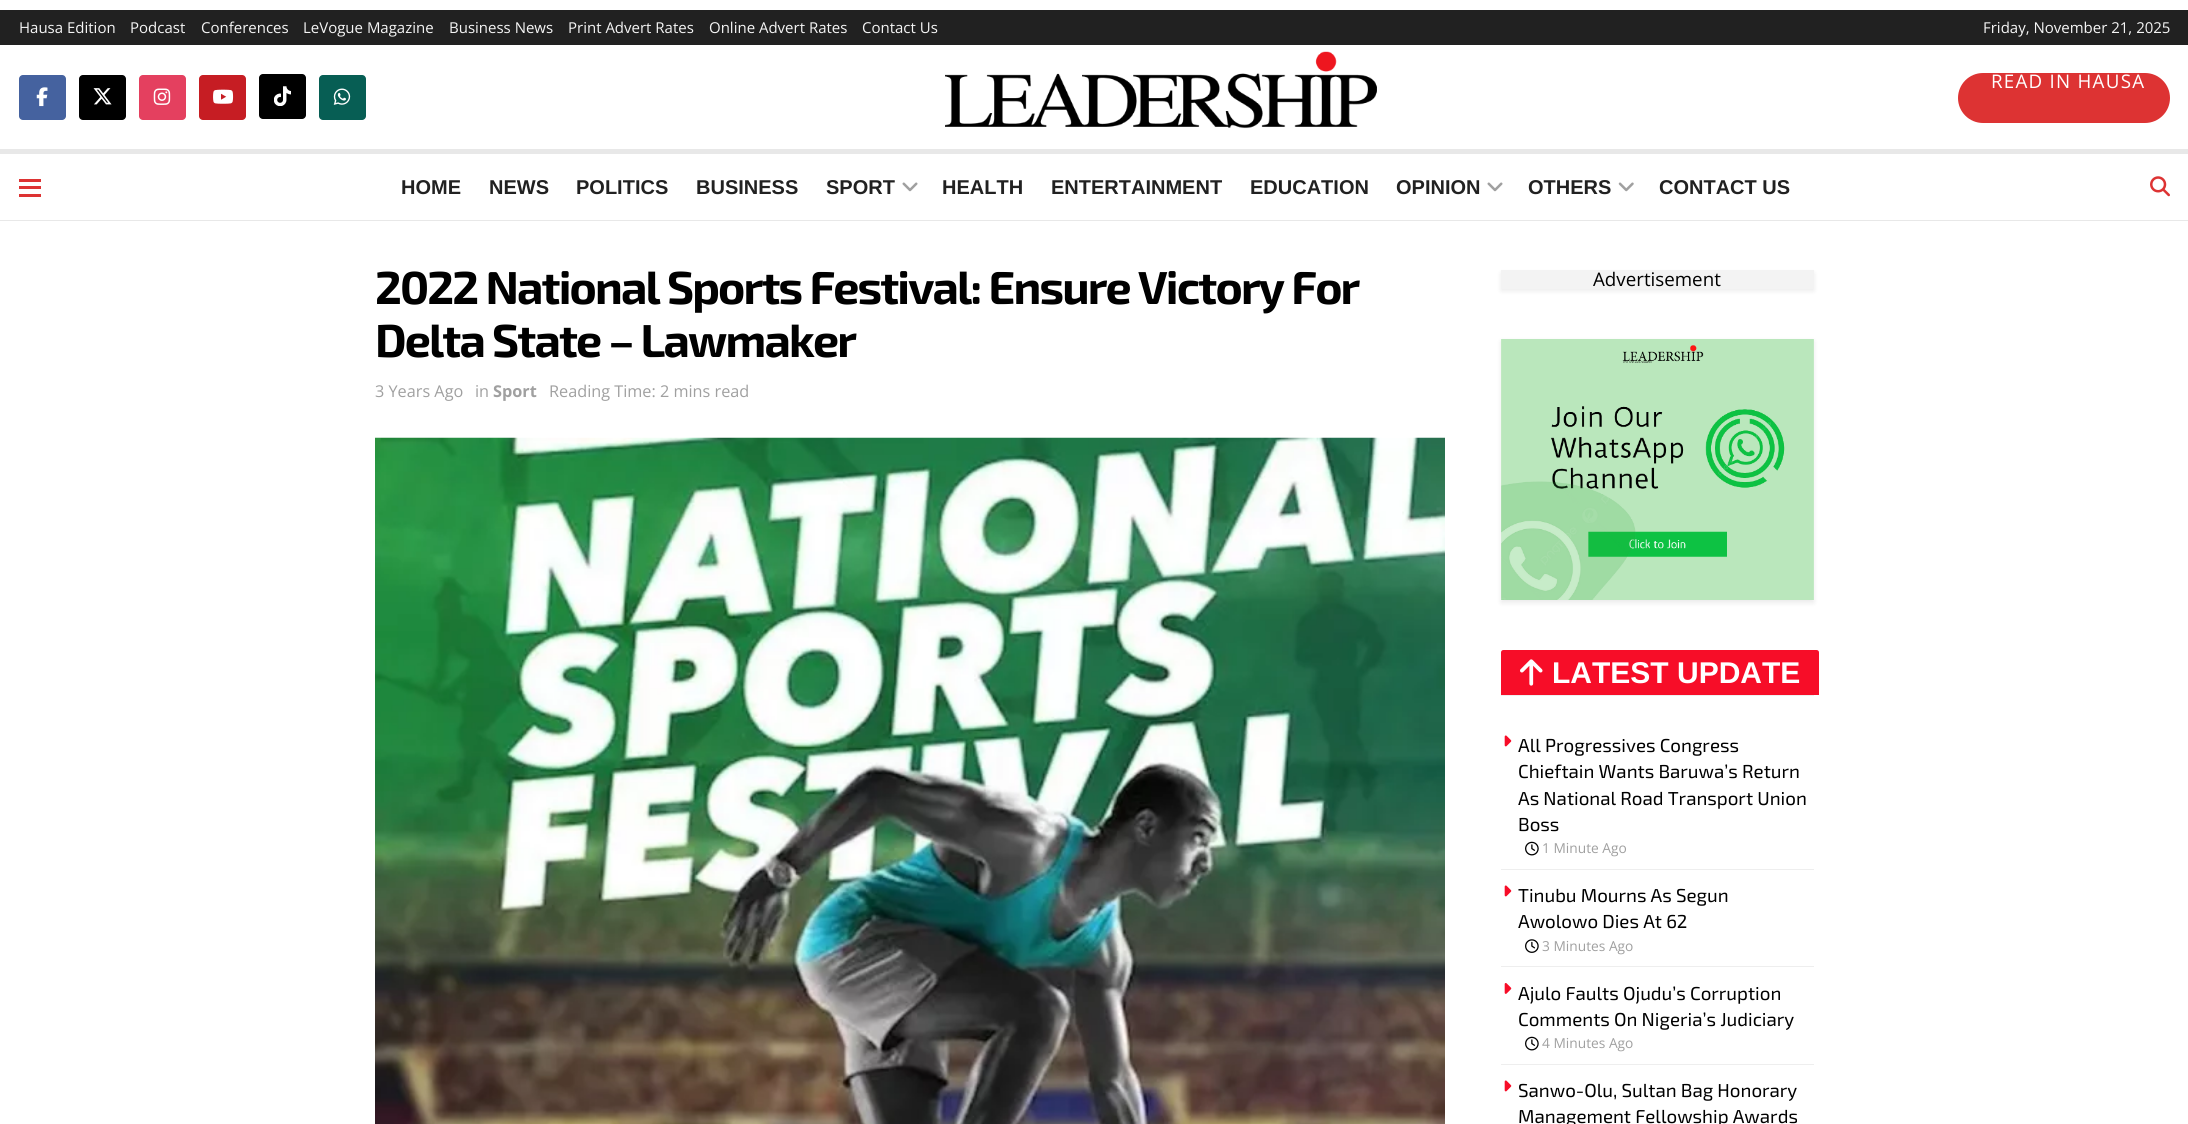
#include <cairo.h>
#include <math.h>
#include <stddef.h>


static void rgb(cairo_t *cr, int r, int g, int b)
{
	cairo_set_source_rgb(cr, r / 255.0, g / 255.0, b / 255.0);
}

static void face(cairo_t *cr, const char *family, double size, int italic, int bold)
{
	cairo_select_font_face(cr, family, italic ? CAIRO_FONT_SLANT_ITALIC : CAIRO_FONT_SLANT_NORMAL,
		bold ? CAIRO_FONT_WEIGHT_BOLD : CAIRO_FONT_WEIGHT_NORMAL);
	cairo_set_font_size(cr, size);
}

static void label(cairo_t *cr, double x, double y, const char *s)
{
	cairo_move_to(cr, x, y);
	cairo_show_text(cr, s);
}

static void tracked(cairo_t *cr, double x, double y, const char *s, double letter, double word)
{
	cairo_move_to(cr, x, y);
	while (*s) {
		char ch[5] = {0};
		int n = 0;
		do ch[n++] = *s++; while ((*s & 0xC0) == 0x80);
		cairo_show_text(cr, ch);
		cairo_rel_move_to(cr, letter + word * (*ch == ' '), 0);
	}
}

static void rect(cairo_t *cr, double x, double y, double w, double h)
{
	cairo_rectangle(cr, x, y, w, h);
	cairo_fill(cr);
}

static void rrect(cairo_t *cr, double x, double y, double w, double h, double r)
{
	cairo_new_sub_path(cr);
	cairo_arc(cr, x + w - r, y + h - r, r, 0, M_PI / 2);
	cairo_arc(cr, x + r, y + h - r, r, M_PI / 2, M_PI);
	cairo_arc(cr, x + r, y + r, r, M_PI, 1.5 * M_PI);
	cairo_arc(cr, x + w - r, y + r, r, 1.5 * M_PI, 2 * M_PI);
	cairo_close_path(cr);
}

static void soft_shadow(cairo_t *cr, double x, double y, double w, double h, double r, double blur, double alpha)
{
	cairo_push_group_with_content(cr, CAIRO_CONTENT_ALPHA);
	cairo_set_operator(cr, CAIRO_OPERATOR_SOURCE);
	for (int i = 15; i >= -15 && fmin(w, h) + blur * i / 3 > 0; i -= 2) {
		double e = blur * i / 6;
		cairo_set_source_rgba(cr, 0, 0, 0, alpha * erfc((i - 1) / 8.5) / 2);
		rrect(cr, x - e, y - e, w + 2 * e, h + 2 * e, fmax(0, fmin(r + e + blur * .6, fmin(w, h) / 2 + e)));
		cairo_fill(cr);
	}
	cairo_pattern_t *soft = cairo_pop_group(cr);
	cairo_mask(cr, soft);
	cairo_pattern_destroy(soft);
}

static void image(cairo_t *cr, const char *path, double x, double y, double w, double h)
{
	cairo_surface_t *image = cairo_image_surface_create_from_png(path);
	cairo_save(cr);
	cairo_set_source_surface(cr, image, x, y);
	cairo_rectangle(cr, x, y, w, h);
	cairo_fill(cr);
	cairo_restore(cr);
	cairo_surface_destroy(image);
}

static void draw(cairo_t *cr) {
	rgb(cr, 255, 255, 255);
	cairo_paint(cr);
	rgb(cr, 33, 33, 33);
	rect(cr, 0, 10, 2188, 35);
	face(cr, "Open Sans", 15, 0, 0);
	rgb(cr, 245, 245, 245);
	label(cr, 19, 33, "Hausa Edition");
	label(cr, 130, 33, "Podcast");
	label(cr, 201, 33, "Conferences");
	label(cr, 303, 33, "LeVogue Magazine");
	label(cr, 449, 33, "Business News");
	label(cr, 568, 33, "Print Advert Rates");
	label(cr, 709, 33, "Online Advert Rates");
	label(cr, 862, 33, "Contact Us");
	label(cr, 1983, 33, "Friday, November 21, 2025");
	rgb(cr, 69, 98, 159);
	rrect(cr, 19, 75, 47, 45, 4);
	cairo_fill(cr);
	image(cr, "image0.png", 36, 87, 12, 20);
	rgb(cr, 0, 0, 0);
	rrect(cr, 79, 75, 47, 45, 4);
	cairo_fill(cr);
	image(cr, "image1.png", 93, 88, 19, 17);
	rgb(cr, 228, 64, 95);
	rrect(cr, 139, 75, 47, 45, 4);
	cairo_fill(cr);
	image(cr, "image2.png", 153, 88, 18, 17);
	rgb(cr, 198, 29, 35);
	rrect(cr, 199, 75, 47, 45, 4);
	cairo_fill(cr);
	image(cr, "image3.png", 213, 89, 21, 15);
	rgb(cr, 0, 0, 0);
	rrect(cr, 259, 74, 47, 45, 4);
	cairo_fill(cr);
	image(cr, "image4.png", 274, 86, 17, 20);
	rgb(cr, 7, 94, 84);
	rrect(cr, 319, 75, 47, 45, 4);
	cairo_fill(cr);
	image(cr, "image5.png", 333, 88, 18, 17);
	image(cr, "image6.png", 945, 51, 432, 78);
	rgb(cr, 221, 51, 51);
	rrect(cr, 1958, 73, 212, 50, 25);
	cairo_fill(cr);
	face(cr, "Open Sans", 18.75, 0, 0);
	rgb(cr, 255, 255, 255);
	tracked(cr, 1991, 88, "READ IN HAUSA", 1.25, 0);
	rgb(cr, 232, 232, 232);
	rect(cr, 0, 149, 2188, 5);
	rect(cr, 0, 220, 2188, 1);
	rgb(cr, 221, 51, 51);
	rect(cr, 19, 179, 22, 3);
	rect(cr, 19, 186, 22, 3);
	rect(cr, 19, 194, 22, 3);
	face(cr, "Liberation Sans", 20, 0, 1);
	rgb(cr, 33, 33, 33);
	label(cr, 401, 194, "HOME");
	label(cr, 489, 194, "NEWS");
	label(cr, 576, 194, "POLITICS");
	label(cr, 696, 194, "BUSINESS");
	label(cr, 826, 194, "SPORT");
	image(cr, "image7.png", 902, 182, 16, 10);
	label(cr, 942, 194, "HEALTH");
	label(cr, 1051, 194, "ENTERTAINMENT");
	label(cr, 1250, 194, "EDUCATION");
	label(cr, 1396, 194, "OPINION");
	image(cr, "image7.png", 1487, 182, 16, 10);
	label(cr, 1528, 194, "OTHERS");
	image(cr, "image8.png", 1618, 182, 16, 10);
	label(cr, 1659, 194, "CONTACT US");
	image(cr, "image9.png", 2150, 176, 20, 21);
	face(cr, "Exo 2", 46.25, 0, 1);
	rgb(cr, 0, 0, 0);
	tracked(cr, 375, 304, "2022 National Sports Festival: Ensure Victory For", -1.85, 0);
	tracked(cr, 375, 357, "Delta State – Lawmaker", -1.85, 0);
	face(cr, "Open Sans", 16.25, 0, 0);
	rgb(cr, 160, 160, 160);
	label(cr, 375, 397, "3 Years Ago");
	label(cr, 475, 397, "in");
	face(cr, "Open Sans", 16.25, 0, 1);
	label(cr, 493, 397, "Sport");
	face(cr, "Open Sans", 16.25, 0, 0);
	label(cr, 549, 397, "Reading Time: 2 mins read");
	image(cr, "image10.png", 375, 437, 1070, 687);
	rgb(cr, 0, 0, 0);
	soft_shadow(cr, 1501, 273, 313, 18, 0, 2.5, 0.08);
	rgb(cr, 243, 243, 243);
	rect(cr, 1501, 270, 313, 19);
	face(cr, "Open Sans", 18.75, 0, 0);
	rgb(cr, 0, 0, 0);
	label(cr, 1593, 286, "Advertisement");
	rgb(cr, 0, 0, 0);
	soft_shadow(cr, 1501, 341, 313, 262, 0, 2.5, 0.08);
	image(cr, "image11.png", 1501, 339, 313, 261);
	rgb(cr, 238, 238, 238);
	rect(cr, 1501, 695, 313, 1);
	rgb(cr, 247, 13, 40);
	cairo_new_path(cr);
	cairo_move_to(cr, 1503.5, 650);
	cairo_line_to(cr, 1816.5, 650);
	cairo_curve_to(cr, 1818, 650, 1819, 651, 1819, 652.5);
	cairo_line_to(cr, 1819, 695);
	cairo_line_to(cr, 1501, 695);
	cairo_line_to(cr, 1501, 652.5);
	cairo_curve_to(cr, 1501, 651, 1502, 650, 1503.5, 650);
	cairo_close_path(cr);
	cairo_fill(cr);
	image(cr, "image12.png", 1520, 659, 23, 27);
	face(cr, "Liberation Sans", 30, 0, 1);
	rgb(cr, 255, 255, 255);
	label(cr, 1552, 683, "LATEST UPDATE");
	rgb(cr, 238, 238, 238);
	rect(cr, 1501, 869, 313, 1);
	image(cr, "image13.png", 1504, 735, 8, 12);
	face(cr, "Exo 2", 18.75, 0, 0);
	rgb(cr, 0, 0, 0);
	label(cr, 1518, 752, "All Progressives Congress");
	label(cr, 1518, 778, "Chieftain Wants Baruwa’s Return");
	label(cr, 1518, 805, "As National Road Transport Union");
	label(cr, 1518, 831, "Boss");
	image(cr, "image14.png", 1525, 841, 14, 15);
	face(cr, "Open Sans", 13.75, 0, 0);
	rgb(cr, 160, 160, 160);
	label(cr, 1542, 853, "1 Minute Ago");
	rgb(cr, 238, 238, 238);
	rect(cr, 1501, 966, 313, 1);
	image(cr, "image13.png", 1504, 885, 8, 12);
	face(cr, "Exo 2", 18.75, 0, 0);
	rgb(cr, 0, 0, 0);
	label(cr, 1518, 902, "Tinubu Mourns As Segun");
	label(cr, 1518, 928, "Awolowo Dies At 62");
	image(cr, "image15.png", 1525, 939, 14, 14);
	face(cr, "Open Sans", 13.75, 0, 0);
	rgb(cr, 160, 160, 160);
	label(cr, 1542, 951, "3 Minutes Ago");
	rgb(cr, 238, 238, 238);
	rect(cr, 1501, 1064, 313, 1);
	image(cr, "image16.png", 1504, 983, 8, 11);
	face(cr, "Exo 2", 18.75, 0, 0);
	rgb(cr, 0, 0, 0);
	label(cr, 1518, 1000, "Ajulo Faults Ojudu’s Corruption");
	label(cr, 1518, 1026, "Comments On Nigeria’s Judiciary");
	image(cr, "image14.png", 1525, 1036, 14, 15);
	face(cr, "Open Sans", 13.75, 0, 0);
	rgb(cr, 160, 160, 160);
	label(cr, 1542, 1048, "4 Minutes Ago");
	image(cr, "image13.png", 1504, 1080, 8, 12);
	face(cr, "Exo 2", 18.75, 0, 0);
	rgb(cr, 0, 0, 0);
	label(cr, 1518, 1097, "Sanwo-Olu, Sultan Bag Honorary");
	label(cr, 1518, 1123, "Management Fellowship Awards");
}

int main(void) {
	cairo_surface_t *surface = cairo_image_surface_create(CAIRO_FORMAT_RGB24, 2188, 1124);
	cairo_t *cr = cairo_create(surface);
	cairo_font_options_t *options = cairo_font_options_create();
	cairo_font_options_set_hint_metrics(options, CAIRO_HINT_METRICS_OFF);
	cairo_font_options_set_hint_style(options, CAIRO_HINT_STYLE_NONE);
	cairo_set_font_options(cr, options);
	cairo_set_miter_limit(cr, 4);
	draw(cr);
	cairo_surface_write_to_png(surface, "render.png");
	cairo_font_options_destroy(options);
	cairo_destroy(cr);
	cairo_surface_destroy(surface);
	return 0;
}
